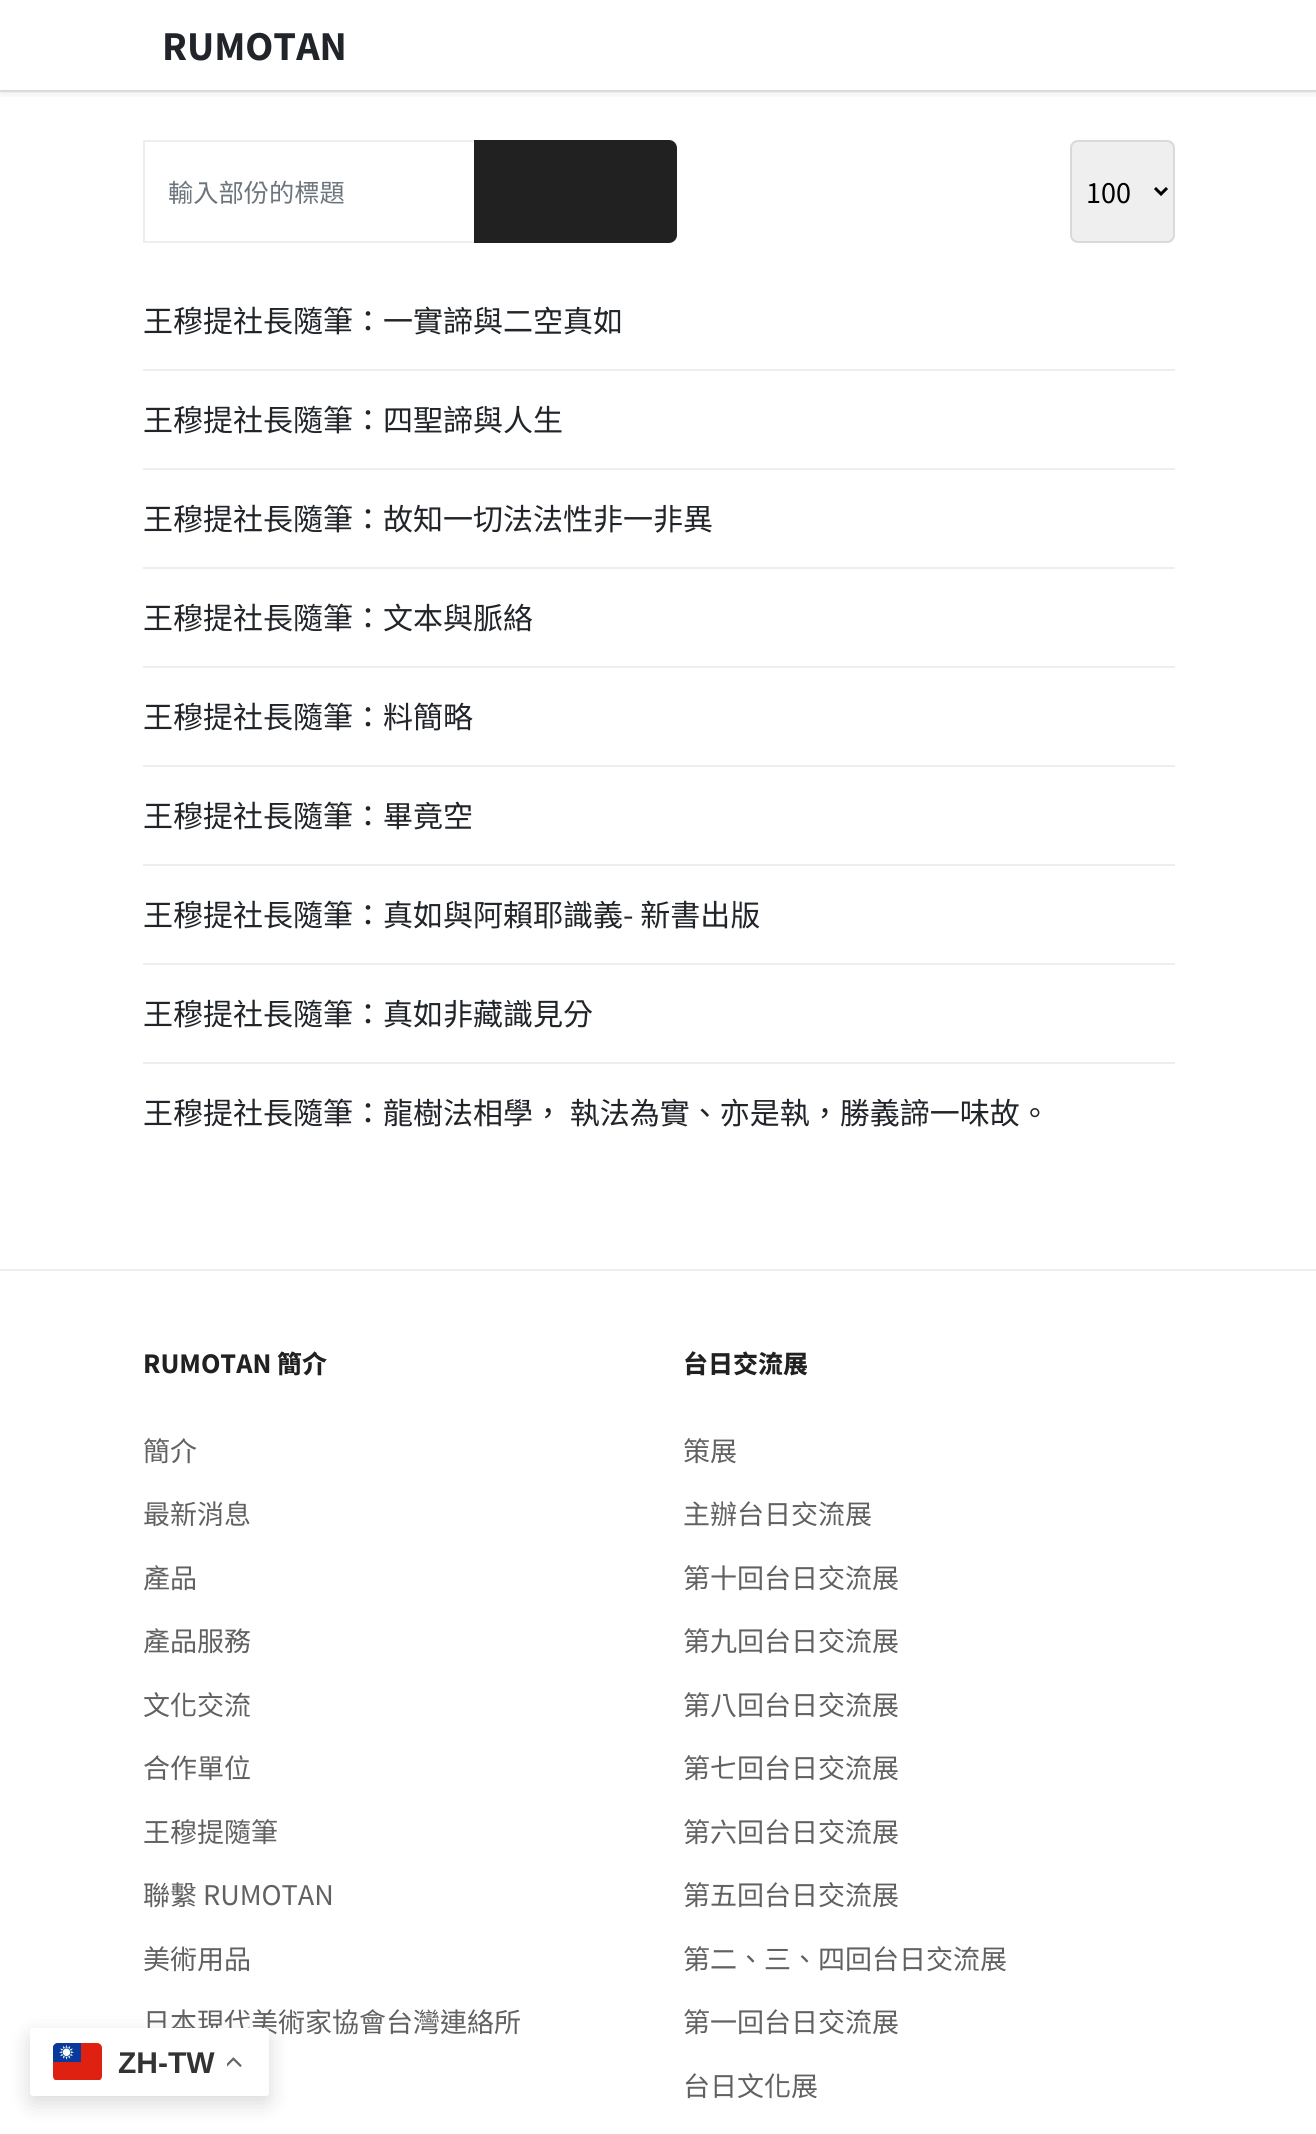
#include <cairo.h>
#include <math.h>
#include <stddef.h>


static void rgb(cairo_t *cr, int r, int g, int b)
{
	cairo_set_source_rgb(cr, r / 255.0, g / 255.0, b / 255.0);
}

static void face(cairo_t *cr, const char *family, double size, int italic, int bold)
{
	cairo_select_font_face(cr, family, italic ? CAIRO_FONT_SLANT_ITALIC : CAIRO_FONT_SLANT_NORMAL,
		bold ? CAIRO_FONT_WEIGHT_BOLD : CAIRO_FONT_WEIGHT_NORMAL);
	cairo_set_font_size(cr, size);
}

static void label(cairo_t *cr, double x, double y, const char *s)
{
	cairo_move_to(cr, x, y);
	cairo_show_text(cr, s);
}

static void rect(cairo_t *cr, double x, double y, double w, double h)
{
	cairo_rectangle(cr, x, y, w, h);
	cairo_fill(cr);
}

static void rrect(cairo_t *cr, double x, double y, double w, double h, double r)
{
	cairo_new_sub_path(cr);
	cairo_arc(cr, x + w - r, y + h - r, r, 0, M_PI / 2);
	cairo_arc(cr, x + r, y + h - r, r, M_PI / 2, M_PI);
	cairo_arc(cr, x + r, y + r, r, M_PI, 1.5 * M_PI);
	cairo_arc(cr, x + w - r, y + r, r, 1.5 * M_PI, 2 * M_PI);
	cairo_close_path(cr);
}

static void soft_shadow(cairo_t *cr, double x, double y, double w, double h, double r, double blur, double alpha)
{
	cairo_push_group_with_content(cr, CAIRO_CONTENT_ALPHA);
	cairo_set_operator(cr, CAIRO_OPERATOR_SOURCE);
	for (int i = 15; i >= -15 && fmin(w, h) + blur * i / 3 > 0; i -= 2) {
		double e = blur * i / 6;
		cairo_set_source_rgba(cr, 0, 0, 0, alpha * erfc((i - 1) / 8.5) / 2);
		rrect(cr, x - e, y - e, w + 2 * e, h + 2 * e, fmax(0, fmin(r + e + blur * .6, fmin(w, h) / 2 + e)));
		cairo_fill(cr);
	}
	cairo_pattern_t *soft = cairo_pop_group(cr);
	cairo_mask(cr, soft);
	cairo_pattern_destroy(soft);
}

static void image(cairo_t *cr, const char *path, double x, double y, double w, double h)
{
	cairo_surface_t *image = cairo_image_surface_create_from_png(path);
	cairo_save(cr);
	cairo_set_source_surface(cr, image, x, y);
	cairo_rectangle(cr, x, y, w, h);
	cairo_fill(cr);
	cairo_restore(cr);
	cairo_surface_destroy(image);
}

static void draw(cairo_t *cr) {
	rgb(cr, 255, 255, 255);
	cairo_paint(cr);
	cairo_save(cr);
	cairo_rectangle(cr, 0, 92, 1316, 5);
	cairo_clip(cr);
	rgb(cr, 0, 0, 0);
	soft_shadow(cr, 0, 5, 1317, 91, 0, 4, 0.05);
	cairo_restore(cr);
	rgb(cr, 238, 238, 238);
	rect(cr, 0, 90, 1316, 2);
	cairo_save(cr);
	cairo_rectangle(cr, 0, 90, 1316, 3);
	cairo_clip(cr);
	rgb(cr, 0, 0, 0);
	soft_shadow(cr, 0, 2, 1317, 90, 0, 1, 0.1);
	cairo_restore(cr);
	face(cr, "Noto Sans TC ExtraBold", 36, 0, 0);
	rgb(cr, 33, 37, 41);
	label(cr, 162, 60, "RUMOTAN");
	rgb(cr, 0, 0, 0);
	soft_shadow(cr, 30, 2036, 239, 67, 3, 11, 0.15);
	face(cr, "Noto Sans TC", 27, 0, 0);
	rgb(cr, 97, 97, 97);
	label(cr, 143, 2032, "日本現代美術家協會台灣連絡所");
	rgb(cr, 255, 255, 255);
	rrect(cr, 30, 2028, 239, 68, 3);
	cairo_fill(cr);
	image(cr, "image0.png", 53, 2043, 49, 37);
	face(cr, "Liberation Sans", 30, 0, 1);
	rgb(cr, 51, 51, 51);
	label(cr, 118, 2073, "ZH-TW");
	image(cr, "image1.png", 227, 2057, 15, 10);
	cairo_rectangle(cr, 144, 141, 331, 101);
	rgb(cr, 238, 238, 238);
	cairo_stroke(cr);
	face(cr, "Noto Sans TC", 25.25, 0, 0);
	rgb(cr, 108, 117, 125);
	label(cr, 168, 202, "輸入部份的標題");
	rgb(cr, 33, 33, 33);
	rect(cr, 474, 140, 101, 103);
	cairo_new_path(cr);
	cairo_move_to(cr, 576.5, 141.5);
	cairo_line_to(cr, 669, 141.5);
	cairo_curve_to(cr, 672.5, 141.5, 675.5, 144.5, 675.5, 148);
	cairo_line_to(cr, 675.5, 235);
	cairo_curve_to(cr, 675.5, 238.5, 672.5, 241.5, 669, 241.5);
	cairo_line_to(cr, 576.5, 241.5);
	cairo_close_path(cr);
	cairo_fill_preserve(cr);
	cairo_set_line_width(cr, 3);
	cairo_stroke(cr);
	rgb(cr, 239, 239, 239);
	rrect(cr, 1070, 140, 105, 103, 8);
	cairo_fill(cr);
	rrect(cr, 1071, 141, 103, 101, 7);
	cairo_set_source_rgba(cr, 0.204, 0.227, 0.251, 0.12);
	cairo_set_line_width(cr, 2);
	cairo_stroke(cr);
	cairo_new_path(cr);
	cairo_move_to(cr, 1155, 188);
	cairo_line_to(cr, 1161, 194);
	cairo_line_to(cr, 1167, 188);
	rgb(cr, 0, 0, 0);
	cairo_set_line_width(cr, 3);
	cairo_stroke(cr);
	face(cr, "Noto Sans TC", 27, 0, 0);
	label(cr, 1086, 203, "100");
	rgb(cr, 238, 238, 238);
	rect(cr, 143, 369, 1032, 2);
	face(cr, "Noto Sans TC", 30, 0, 0);
	rgb(cr, 33, 37, 41);
	label(cr, 143, 332, "王穆提社長隨筆：一實諦與二空真如");
	rgb(cr, 238, 238, 238);
	rect(cr, 143, 468, 1032, 2);
	rgb(cr, 33, 37, 41);
	label(cr, 143, 431, "王穆提社長隨筆：四聖諦與人生");
	rgb(cr, 238, 238, 238);
	rect(cr, 143, 567, 1032, 2);
	rgb(cr, 33, 37, 41);
	label(cr, 143, 530, "王穆提社長隨筆：故知一切法法性非一非異");
	rgb(cr, 238, 238, 238);
	rect(cr, 143, 666, 1032, 2);
	rgb(cr, 33, 37, 41);
	label(cr, 143, 629, "王穆提社長隨筆：文本與脈絡");
	rgb(cr, 238, 238, 238);
	rect(cr, 143, 765, 1032, 2);
	rgb(cr, 33, 37, 41);
	label(cr, 143, 728, "王穆提社長隨筆：料簡略");
	rgb(cr, 238, 238, 238);
	rect(cr, 143, 864, 1032, 2);
	rgb(cr, 33, 37, 41);
	label(cr, 143, 827, "王穆提社長隨筆：畢竟空");
	rgb(cr, 238, 238, 238);
	rect(cr, 143, 963, 1032, 2);
	rgb(cr, 33, 37, 41);
	label(cr, 143, 926, "王穆提社長隨筆：真如與阿賴耶識義- 新書出版");
	rgb(cr, 238, 238, 238);
	rect(cr, 143, 1062, 1032, 2);
	rgb(cr, 33, 37, 41);
	label(cr, 143, 1025, "王穆提社長隨筆：真如非藏識見分");
	label(cr, 143, 1124, "王穆提社長隨筆：龍樹法相學， 執法為實、亦是執，勝義諦一味故。");
	rgb(cr, 238, 238, 238);
	rect(cr, 0, 1269, 1316, 2);
	face(cr, "Noto Sans TC ExtraBold", 25, 0, 0);
	rgb(cr, 33, 33, 33);
	label(cr, 143, 1373, "RUMOTAN 簡介");
	face(cr, "Noto Sans TC", 27, 0, 0);
	rgb(cr, 97, 97, 97);
	label(cr, 143, 1461, "簡介");
	label(cr, 143, 1524, "最新消息");
	label(cr, 143, 1588, "產品");
	label(cr, 143, 1651, "產品服務");
	label(cr, 143, 1715, "文化交流");
	label(cr, 143, 1778, "合作單位");
	label(cr, 143, 1842, "王穆提隨筆");
	label(cr, 143, 1905, "聯繫 RUMOTAN");
	label(cr, 143, 1969, "美術用品");
	face(cr, "Noto Sans TC ExtraBold", 25, 0, 0);
	rgb(cr, 33, 33, 33);
	label(cr, 683, 1373, "台日交流展");
	face(cr, "Noto Sans TC", 27, 0, 0);
	rgb(cr, 97, 97, 97);
	label(cr, 683, 1461, "策展");
	label(cr, 683, 1524, "主辦台日交流展");
	label(cr, 683, 1588, "第十回台日交流展");
	label(cr, 683, 1651, "第九回台日交流展");
	label(cr, 683, 1715, "第八回台日交流展");
	label(cr, 683, 1778, "第七回台日交流展");
	label(cr, 683, 1842, "第六回台日交流展");
	label(cr, 683, 1905, "第五回台日交流展");
	label(cr, 683, 1969, "第二、三、四回台日交流展");
	label(cr, 683, 2032, "第一回台日交流展");
	label(cr, 683, 2096, "台日文化展");
}

int main(void) {
	cairo_surface_t *surface = cairo_image_surface_create(CAIRO_FORMAT_RGB24, 1316, 2134);
	cairo_t *cr = cairo_create(surface);
	cairo_font_options_t *options = cairo_font_options_create();
	cairo_font_options_set_hint_metrics(options, CAIRO_HINT_METRICS_OFF);
	cairo_font_options_set_hint_style(options, CAIRO_HINT_STYLE_NONE);
	cairo_set_font_options(cr, options);
	cairo_set_miter_limit(cr, 4);
	draw(cr);
	cairo_surface_write_to_png(surface, "render.png");
	cairo_font_options_destroy(options);
	cairo_destroy(cr);
	cairo_surface_destroy(surface);
	return 0;
}
